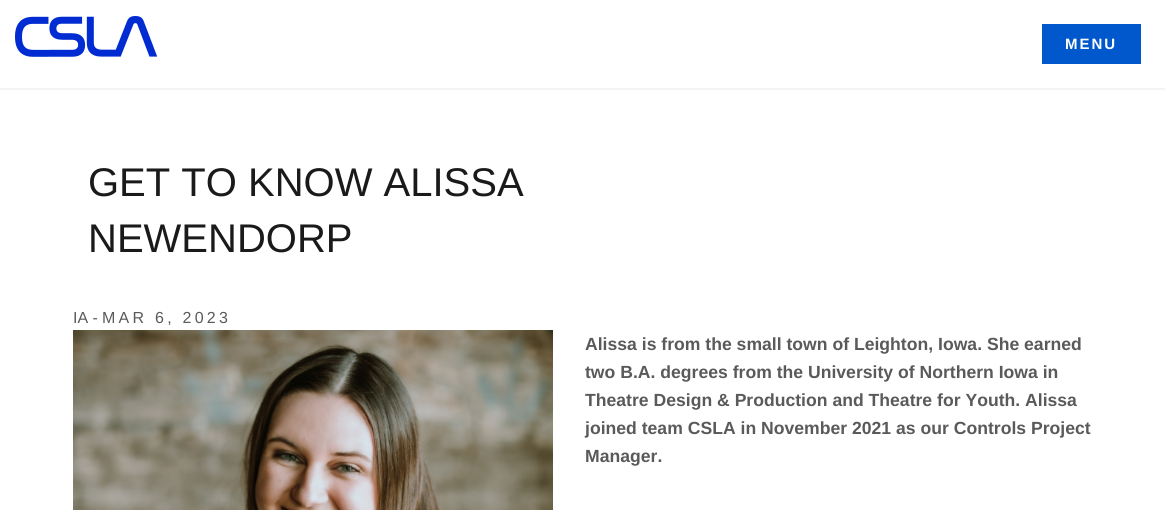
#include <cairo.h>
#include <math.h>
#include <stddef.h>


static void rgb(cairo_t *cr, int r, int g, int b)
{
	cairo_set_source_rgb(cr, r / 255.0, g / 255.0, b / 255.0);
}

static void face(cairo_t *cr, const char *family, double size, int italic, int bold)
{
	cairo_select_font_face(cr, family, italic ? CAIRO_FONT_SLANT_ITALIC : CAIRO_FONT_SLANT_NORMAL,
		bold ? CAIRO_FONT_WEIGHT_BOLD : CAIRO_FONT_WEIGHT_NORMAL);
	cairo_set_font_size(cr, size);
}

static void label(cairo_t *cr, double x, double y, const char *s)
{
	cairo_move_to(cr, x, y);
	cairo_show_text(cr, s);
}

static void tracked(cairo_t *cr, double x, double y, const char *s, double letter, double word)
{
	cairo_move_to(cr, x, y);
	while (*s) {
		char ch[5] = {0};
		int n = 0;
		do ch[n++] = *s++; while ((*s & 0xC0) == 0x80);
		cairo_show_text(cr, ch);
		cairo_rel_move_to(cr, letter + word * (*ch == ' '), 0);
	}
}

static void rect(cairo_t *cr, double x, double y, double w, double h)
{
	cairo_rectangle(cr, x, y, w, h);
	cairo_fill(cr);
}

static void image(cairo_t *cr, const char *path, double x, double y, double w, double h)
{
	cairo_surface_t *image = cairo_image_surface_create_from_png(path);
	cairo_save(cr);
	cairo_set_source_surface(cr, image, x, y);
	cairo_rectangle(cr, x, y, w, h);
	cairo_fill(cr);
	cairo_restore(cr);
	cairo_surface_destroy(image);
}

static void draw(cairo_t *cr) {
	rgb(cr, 255, 255, 255);
	cairo_paint(cr);
	rgb(cr, 244, 244, 244);
	rect(cr, 0, 88, 1165, 2);
	image(cr, "image0.png", 15, 16, 142, 41);
	rgb(cr, 0, 88, 204);
	rect(cr, 1042, 24, 99, 40);
	face(cr, "Liberation Sans", 15, 0, 1);
	rgb(cr, 255, 255, 255);
	tracked(cr, 1065, 49, "MENU", 2, 0);
	face(cr, "Liberation Sans", 40, 0, 0);
	rgb(cr, 26, 26, 26);
	label(cr, 88, 196, "GET TO KNOW ALISSA");
	label(cr, 88, 252, "NEWENDORP");
	face(cr, "Liberation Sans", 16, 0, 0);
	rgb(cr, 90, 90, 90);
	label(cr, 73, 323, "IA -");
	tracked(cr, 102, 323, "MAR 6, 2023", 3.25, 0);
	image(cr, "image1.png", 73, 330, 480, 180);
	face(cr, "Liberation Sans", 17.6, 0, 1);
	label(cr, 585, 350, "Alissa is from the small town of Leighton, Iowa. She earned");
	label(cr, 585, 378, "two B.A. degrees from the University of Northern Iowa in");
	label(cr, 585, 406, "Theatre Design & Production and Theatre for Youth. Alissa");
	label(cr, 585, 434, "joined team CSLA in November 2021 as our Controls Project");
	label(cr, 585, 462, "Manager.");
}

int main(void) {
	cairo_surface_t *surface = cairo_image_surface_create(CAIRO_FORMAT_RGB24, 1165, 510);
	cairo_t *cr = cairo_create(surface);
	cairo_font_options_t *options = cairo_font_options_create();
	cairo_font_options_set_hint_metrics(options, CAIRO_HINT_METRICS_OFF);
	cairo_font_options_set_hint_style(options, CAIRO_HINT_STYLE_NONE);
	cairo_set_font_options(cr, options);
	cairo_set_miter_limit(cr, 4);
	draw(cr);
	cairo_surface_write_to_png(surface, "render.png");
	cairo_font_options_destroy(options);
	cairo_destroy(cr);
	cairo_surface_destroy(surface);
	return 0;
}
